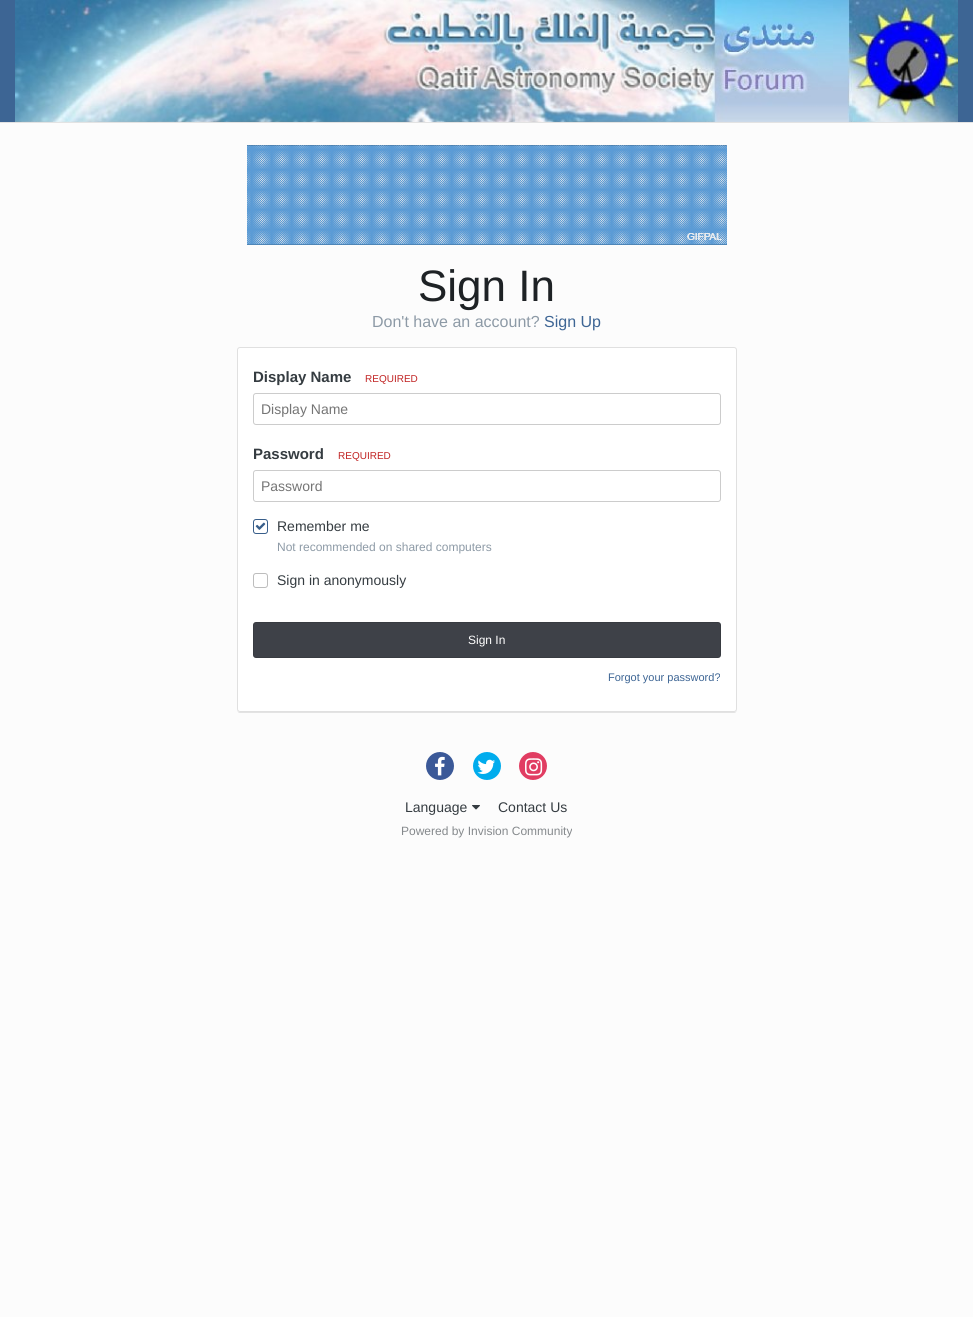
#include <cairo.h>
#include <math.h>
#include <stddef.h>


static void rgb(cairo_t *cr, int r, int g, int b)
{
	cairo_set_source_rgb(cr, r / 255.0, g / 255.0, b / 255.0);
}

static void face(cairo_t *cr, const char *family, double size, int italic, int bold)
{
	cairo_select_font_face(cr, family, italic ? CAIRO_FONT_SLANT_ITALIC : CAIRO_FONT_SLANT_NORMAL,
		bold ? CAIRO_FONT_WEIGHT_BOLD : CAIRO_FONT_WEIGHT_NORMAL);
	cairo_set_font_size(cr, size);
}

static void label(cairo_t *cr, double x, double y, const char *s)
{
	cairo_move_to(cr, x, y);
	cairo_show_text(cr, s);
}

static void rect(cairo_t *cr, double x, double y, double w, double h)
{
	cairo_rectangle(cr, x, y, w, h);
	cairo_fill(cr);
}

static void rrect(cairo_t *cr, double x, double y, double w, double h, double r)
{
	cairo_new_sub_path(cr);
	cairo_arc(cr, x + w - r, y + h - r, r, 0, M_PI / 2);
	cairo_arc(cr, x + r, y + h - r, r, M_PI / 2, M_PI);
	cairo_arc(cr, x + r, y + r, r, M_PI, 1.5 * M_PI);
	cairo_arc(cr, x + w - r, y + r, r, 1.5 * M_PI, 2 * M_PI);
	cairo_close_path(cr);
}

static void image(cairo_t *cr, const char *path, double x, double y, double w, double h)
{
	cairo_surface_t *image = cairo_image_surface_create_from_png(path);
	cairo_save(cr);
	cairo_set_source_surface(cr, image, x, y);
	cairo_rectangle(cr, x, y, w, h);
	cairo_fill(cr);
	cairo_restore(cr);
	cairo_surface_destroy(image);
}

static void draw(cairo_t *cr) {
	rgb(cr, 252, 252, 252);
	cairo_paint(cr);
	rgb(cr, 227, 227, 227);
	rect(cr, 0, 122, 973, 1);
	rgb(cr, 61, 101, 148);
	rect(cr, 0, 0, 973, 122);
	image(cr, "image0.png", 15, 0, 943, 122);
	image(cr, "image1.png", 247, 145, 480, 100);
	face(cr, "Liberation Sans", 44, 0, 0);
	rgb(cr, 30, 34, 37);
	label(cr, 418, 301, "Sign In");
	face(cr, "Liberation Sans", 16, 0, 0);
	rgb(cr, 141, 154, 166);
	label(cr, 372, 327, "Don't have an account?");
	rgb(cr, 61, 101, 148);
	label(cr, 544, 327, "Sign Up");
	rgb(cr, 227, 227, 227);
	cairo_new_path(cr);
	cairo_move_to(cr, 237, 709);
	cairo_curve_to(cr, 237, 711, 238, 713, 240, 713);
	cairo_line_to(cr, 734, 713);
	cairo_curve_to(cr, 736, 713, 737, 711, 737, 709);
	cairo_curve_to(cr, 737, 711, 736, 712, 734, 712);
	cairo_line_to(cr, 240, 712);
	cairo_curve_to(cr, 238, 712, 237, 711, 237, 709);
	cairo_close_path(cr);
	cairo_fill(cr);
	rgb(cr, 255, 255, 255);
	rrect(cr, 237.5, 347.5, 499, 364, 2.5);
	cairo_fill_preserve(cr);
	rgb(cr, 224, 224, 224);
	cairo_set_line_width(cr, 1);
	cairo_stroke(cr);
	face(cr, "Liberation Sans", 15, 0, 1);
	rgb(cr, 53, 60, 65);
	label(cr, 253, 382, "Display Name");
	face(cr, "Liberation Sans", 10, 0, 0);
	rgb(cr, 192, 34, 34);
	label(cr, 365, 382, "REQUIRED");
	rrect(cr, 253.5, 393.5, 467, 31, 2.5);
	rgb(cr, 204, 204, 204);
	cairo_stroke(cr);
	face(cr, "Liberation Sans", 14, 0, 0);
	rgb(cr, 117, 117, 117);
	label(cr, 261, 414, "Display Name");
	face(cr, "Liberation Sans", 15, 0, 1);
	rgb(cr, 53, 60, 65);
	label(cr, 253, 459, "Password");
	face(cr, "Liberation Sans", 10, 0, 0);
	rgb(cr, 192, 34, 34);
	label(cr, 338, 459, "REQUIRED");
	rrect(cr, 253.5, 470.5, 467, 31, 2.5);
	rgb(cr, 204, 204, 204);
	cairo_stroke(cr);
	face(cr, "Liberation Sans", 14, 0, 0);
	rgb(cr, 117, 117, 117);
	label(cr, 261, 491, "Password");
	rrect(cr, 253.5, 519.5, 14, 14, 2.5);
	rgb(cr, 56, 94, 138);
	cairo_stroke(cr);
	image(cr, "image2.png", 255, 522, 11, 8);
	rgb(cr, 53, 60, 65);
	label(cr, 277, 531, "Remember me");
	face(cr, "Liberation Sans", 12, 0, 0);
	rgb(cr, 141, 154, 166);
	label(cr, 277, 551, "Not recommended on shared computers");
	rrect(cr, 253.5, 573.5, 14, 14, 2.5);
	rgb(cr, 189, 189, 189);
	cairo_stroke(cr);
	face(cr, "Liberation Sans", 14, 0, 0);
	rgb(cr, 53, 60, 65);
	label(cr, 277, 585, "Sign in anonymously");
	rgb(cr, 62, 65, 72);
	rrect(cr, 253, 622, 468, 36, 3);
	cairo_fill(cr);
	rrect(cr, 253.5, 622.5, 467, 35, 2.5);
	cairo_set_source_rgba(cr, 0, 0, 0, 0.1);
	cairo_stroke(cr);
	face(cr, "Liberation Sans", 12, 0, 0);
	rgb(cr, 255, 255, 255);
	label(cr, 468, 644, "Sign In");
	face(cr, "Liberation Sans", 11, 0, 0);
	rgb(cr, 61, 101, 148);
	label(cr, 608, 681, "Forgot your password?");
	rgb(cr, 59, 89, 152);
	cairo_new_path(cr);
	cairo_arc(cr, 440, 766, 14, 0, 2 * M_PI);
	cairo_fill(cr);
	image(cr, "image3.png", 435, 756, 10, 20);
	rgb(cr, 0, 172, 237);
	cairo_arc(cr, 487, 766, 14, 0, 2 * M_PI);
	cairo_fill(cr);
	image(cr, "image4.png", 477, 759, 18, 15);
	rgb(cr, 225, 61, 98);
	cairo_arc(cr, 533, 766, 14, 0, 2 * M_PI);
	cairo_fill(cr);
	image(cr, "image5.png", 525, 758, 18, 18);
	face(cr, "Liberation Sans", 14, 0, 0);
	rgb(cr, 53, 60, 65);
	label(cr, 405, 812, "Language");
	image(cr, "image6.png", 472, 805, 8, 5);
	label(cr, 498, 812, "Contact Us");
	face(cr, "Liberation Sans", 12, 0, 0);
	rgb(cr, 133, 137, 140);
	label(cr, 401, 835, "Powered by Invision Community");
}

int main(void) {
	cairo_surface_t *surface = cairo_image_surface_create(CAIRO_FORMAT_RGB24, 973, 1317);
	cairo_t *cr = cairo_create(surface);
	cairo_font_options_t *options = cairo_font_options_create();
	cairo_font_options_set_hint_metrics(options, CAIRO_HINT_METRICS_OFF);
	cairo_font_options_set_hint_style(options, CAIRO_HINT_STYLE_NONE);
	cairo_set_font_options(cr, options);
	cairo_set_miter_limit(cr, 4);
	draw(cr);
	cairo_surface_write_to_png(surface, "render.png");
	cairo_font_options_destroy(options);
	cairo_destroy(cr);
	cairo_surface_destroy(surface);
	return 0;
}
